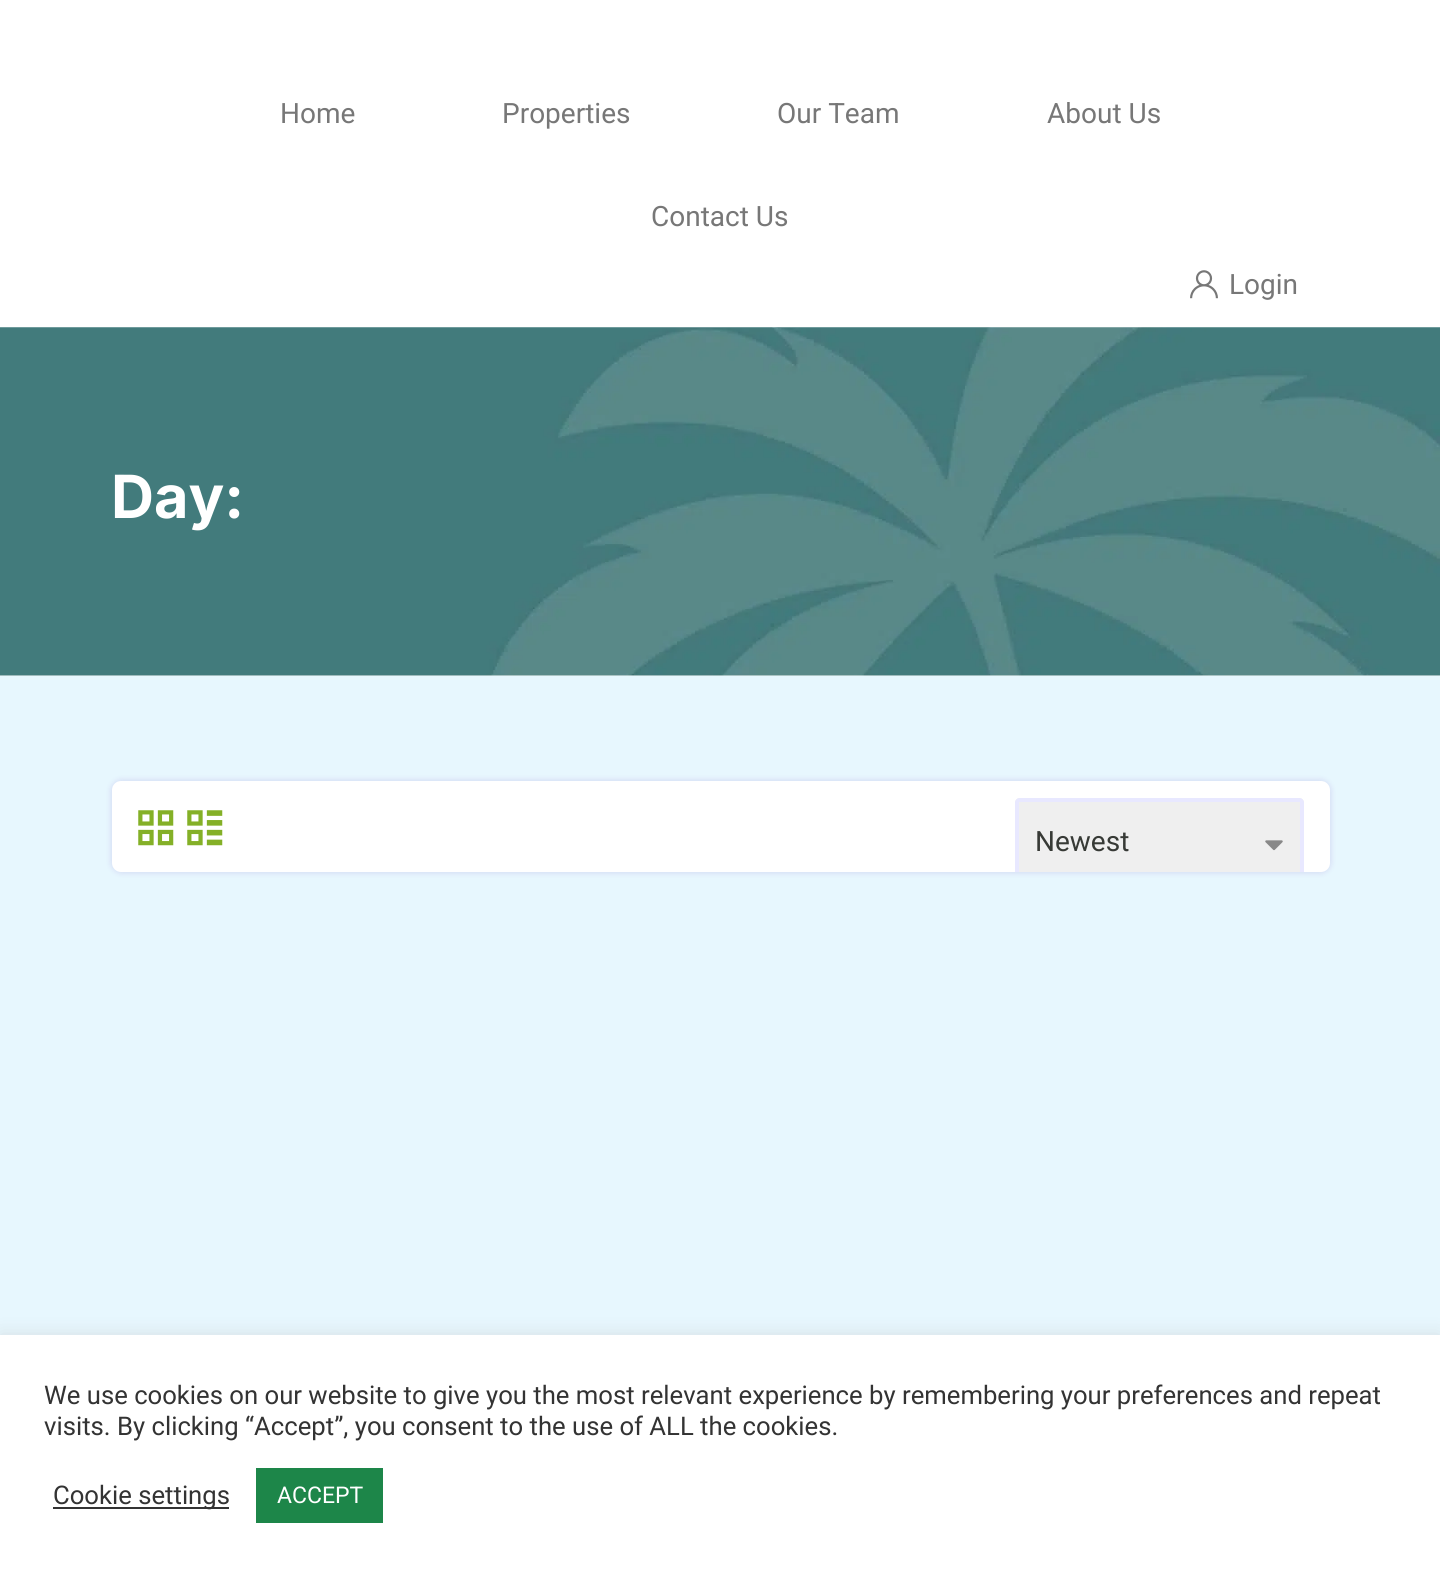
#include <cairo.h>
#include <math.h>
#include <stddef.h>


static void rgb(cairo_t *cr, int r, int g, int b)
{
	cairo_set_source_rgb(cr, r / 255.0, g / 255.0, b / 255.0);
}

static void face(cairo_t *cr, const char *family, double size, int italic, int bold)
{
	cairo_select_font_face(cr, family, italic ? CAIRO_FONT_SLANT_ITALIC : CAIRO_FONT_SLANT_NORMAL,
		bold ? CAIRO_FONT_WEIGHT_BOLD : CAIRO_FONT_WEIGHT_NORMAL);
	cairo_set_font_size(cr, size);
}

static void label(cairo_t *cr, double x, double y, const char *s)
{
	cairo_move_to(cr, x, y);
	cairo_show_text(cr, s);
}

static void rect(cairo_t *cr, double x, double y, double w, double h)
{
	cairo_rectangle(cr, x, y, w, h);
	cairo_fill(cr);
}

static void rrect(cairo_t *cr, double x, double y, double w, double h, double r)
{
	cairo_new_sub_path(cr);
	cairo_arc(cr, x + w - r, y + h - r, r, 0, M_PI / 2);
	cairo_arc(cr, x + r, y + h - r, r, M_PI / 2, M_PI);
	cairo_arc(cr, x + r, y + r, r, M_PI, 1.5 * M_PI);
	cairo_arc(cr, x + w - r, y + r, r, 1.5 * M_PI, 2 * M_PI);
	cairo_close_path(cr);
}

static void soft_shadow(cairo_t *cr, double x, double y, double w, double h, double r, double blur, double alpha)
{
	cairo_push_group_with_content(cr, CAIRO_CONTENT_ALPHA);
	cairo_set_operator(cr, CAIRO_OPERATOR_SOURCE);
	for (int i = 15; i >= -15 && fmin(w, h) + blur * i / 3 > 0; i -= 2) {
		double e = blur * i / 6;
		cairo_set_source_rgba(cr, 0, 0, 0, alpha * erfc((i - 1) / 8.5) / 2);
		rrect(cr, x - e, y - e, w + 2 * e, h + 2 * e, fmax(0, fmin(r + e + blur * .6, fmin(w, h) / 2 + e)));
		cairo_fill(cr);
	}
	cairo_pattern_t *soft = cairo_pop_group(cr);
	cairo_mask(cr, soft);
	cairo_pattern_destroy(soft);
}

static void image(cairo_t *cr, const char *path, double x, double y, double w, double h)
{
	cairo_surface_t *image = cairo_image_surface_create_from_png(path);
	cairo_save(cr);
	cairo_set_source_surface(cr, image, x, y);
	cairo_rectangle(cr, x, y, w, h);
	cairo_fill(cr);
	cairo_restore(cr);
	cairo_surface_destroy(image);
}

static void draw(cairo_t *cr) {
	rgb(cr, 255, 255, 255);
	cairo_paint(cr);
	face(cr, "Roboto", 28, 0, 0);
	rgb(cr, 119, 119, 119);
	label(cr, 280, 123, "Home");
	label(cr, 502, 123, "Properties");
	label(cr, 777, 123, "Our Team");
	label(cr, 1047, 123, "About Us");
	label(cr, 651, 226, "Contact Us");
	image(cr, "image0.png", 1190, 270, 28, 29);
	label(cr, 1229, 294, "Login");
	image(cr, "image1.png", 0, 327, 1440, 349);
	face(cr, "Inter", 59.5, 0, 1);
	rgb(cr, 255, 255, 255);
	label(cr, 111, 518, "Day:");
	rgb(cr, 231, 247, 254);
	rect(cr, 0, 676, 1440, 659);
	rgb(cr, 72, 12, 168);
	soft_shadow(cr, 112, 781, 1218, 91, 9, 3.5, 0.16);
	rgb(cr, 255, 255, 255);
	rrect(cr, 112, 781, 1218, 91, 9);
	cairo_fill(cr);
	image(cr, "image2.png", 138, 810, 36, 36);
	image(cr, "image3.png", 187, 810, 36, 36);
	rgb(cr, 239, 239, 239);
	cairo_new_path(cr);
	cairo_move_to(cr, 1020, 798);
	cairo_line_to(cr, 1299, 798);
	cairo_curve_to(cr, 1302, 798, 1304, 800, 1304, 803);
	cairo_line_to(cr, 1304, 872);
	cairo_line_to(cr, 1015, 872);
	cairo_line_to(cr, 1015, 803);
	cairo_curve_to(cr, 1015, 800, 1017, 798, 1020, 798);
	cairo_close_path(cr);
	cairo_fill(cr);
	image(cr, "image4.png", 1265, 840, 18, 11);
	rgb(cr, 232, 232, 255);
	cairo_new_path(cr);
	cairo_move_to(cr, 1020, 798);
	cairo_curve_to(cr, 1017, 798, 1015, 800, 1015, 803);
	cairo_line_to(cr, 1015, 872);
	cairo_line_to(cr, 1019, 872);
	cairo_line_to(cr, 1019, 803);
	cairo_curve_to(cr, 1019, 802, 1019, 802, 1020, 802);
	cairo_line_to(cr, 1299, 802);
	cairo_curve_to(cr, 1300, 802, 1300, 802, 1300, 803);
	cairo_line_to(cr, 1300, 872);
	cairo_line_to(cr, 1304, 872);
	cairo_line_to(cr, 1304, 803);
	cairo_curve_to(cr, 1304, 800, 1302, 798, 1299, 798);
	cairo_close_path(cr);
	cairo_fill(cr);
	face(cr, "Roboto", 28, 0, 0);
	rgb(cr, 55, 58, 54);
	label(cr, 1035, 851, "Newest");
	rgb(cr, 172, 171, 171);
	soft_shadow(cr, 0, 1334, 1440, 239, 0, 9, 0.3);
	rgb(cr, 255, 255, 255);
	rect(cr, 0, 1335, 1440, 239);
	face(cr, "Roboto", 25.67, 0, 0);
	rgb(cr, 51, 51, 51);
	label(cr, 44, 1404, "We use cookies on our website to give you the most relevant experience by remembering your preferences and repeat");
	label(cr, 44, 1435, "visits. By clicking “Accept”, you consent to the use of ALL the cookies.");
	rect(cr, 53, 1507, 176, 2);
	label(cr, 53, 1504, "Cookie settings");
	rgb(cr, 29, 134, 73);
	rect(cr, 256, 1468, 127, 55);
	face(cr, "Roboto", 23, 0, 0);
	rgb(cr, 255, 255, 255);
	label(cr, 277, 1503, "ACCEPT");
}

int main(void) {
	cairo_surface_t *surface = cairo_image_surface_create(CAIRO_FORMAT_RGB24, 1440, 1574);
	cairo_t *cr = cairo_create(surface);
	cairo_font_options_t *options = cairo_font_options_create();
	cairo_font_options_set_hint_metrics(options, CAIRO_HINT_METRICS_OFF);
	cairo_font_options_set_hint_style(options, CAIRO_HINT_STYLE_NONE);
	cairo_set_font_options(cr, options);
	cairo_set_miter_limit(cr, 4);
	draw(cr);
	cairo_surface_write_to_png(surface, "render.png");
	cairo_font_options_destroy(options);
	cairo_destroy(cr);
	cairo_surface_destroy(surface);
	return 0;
}
